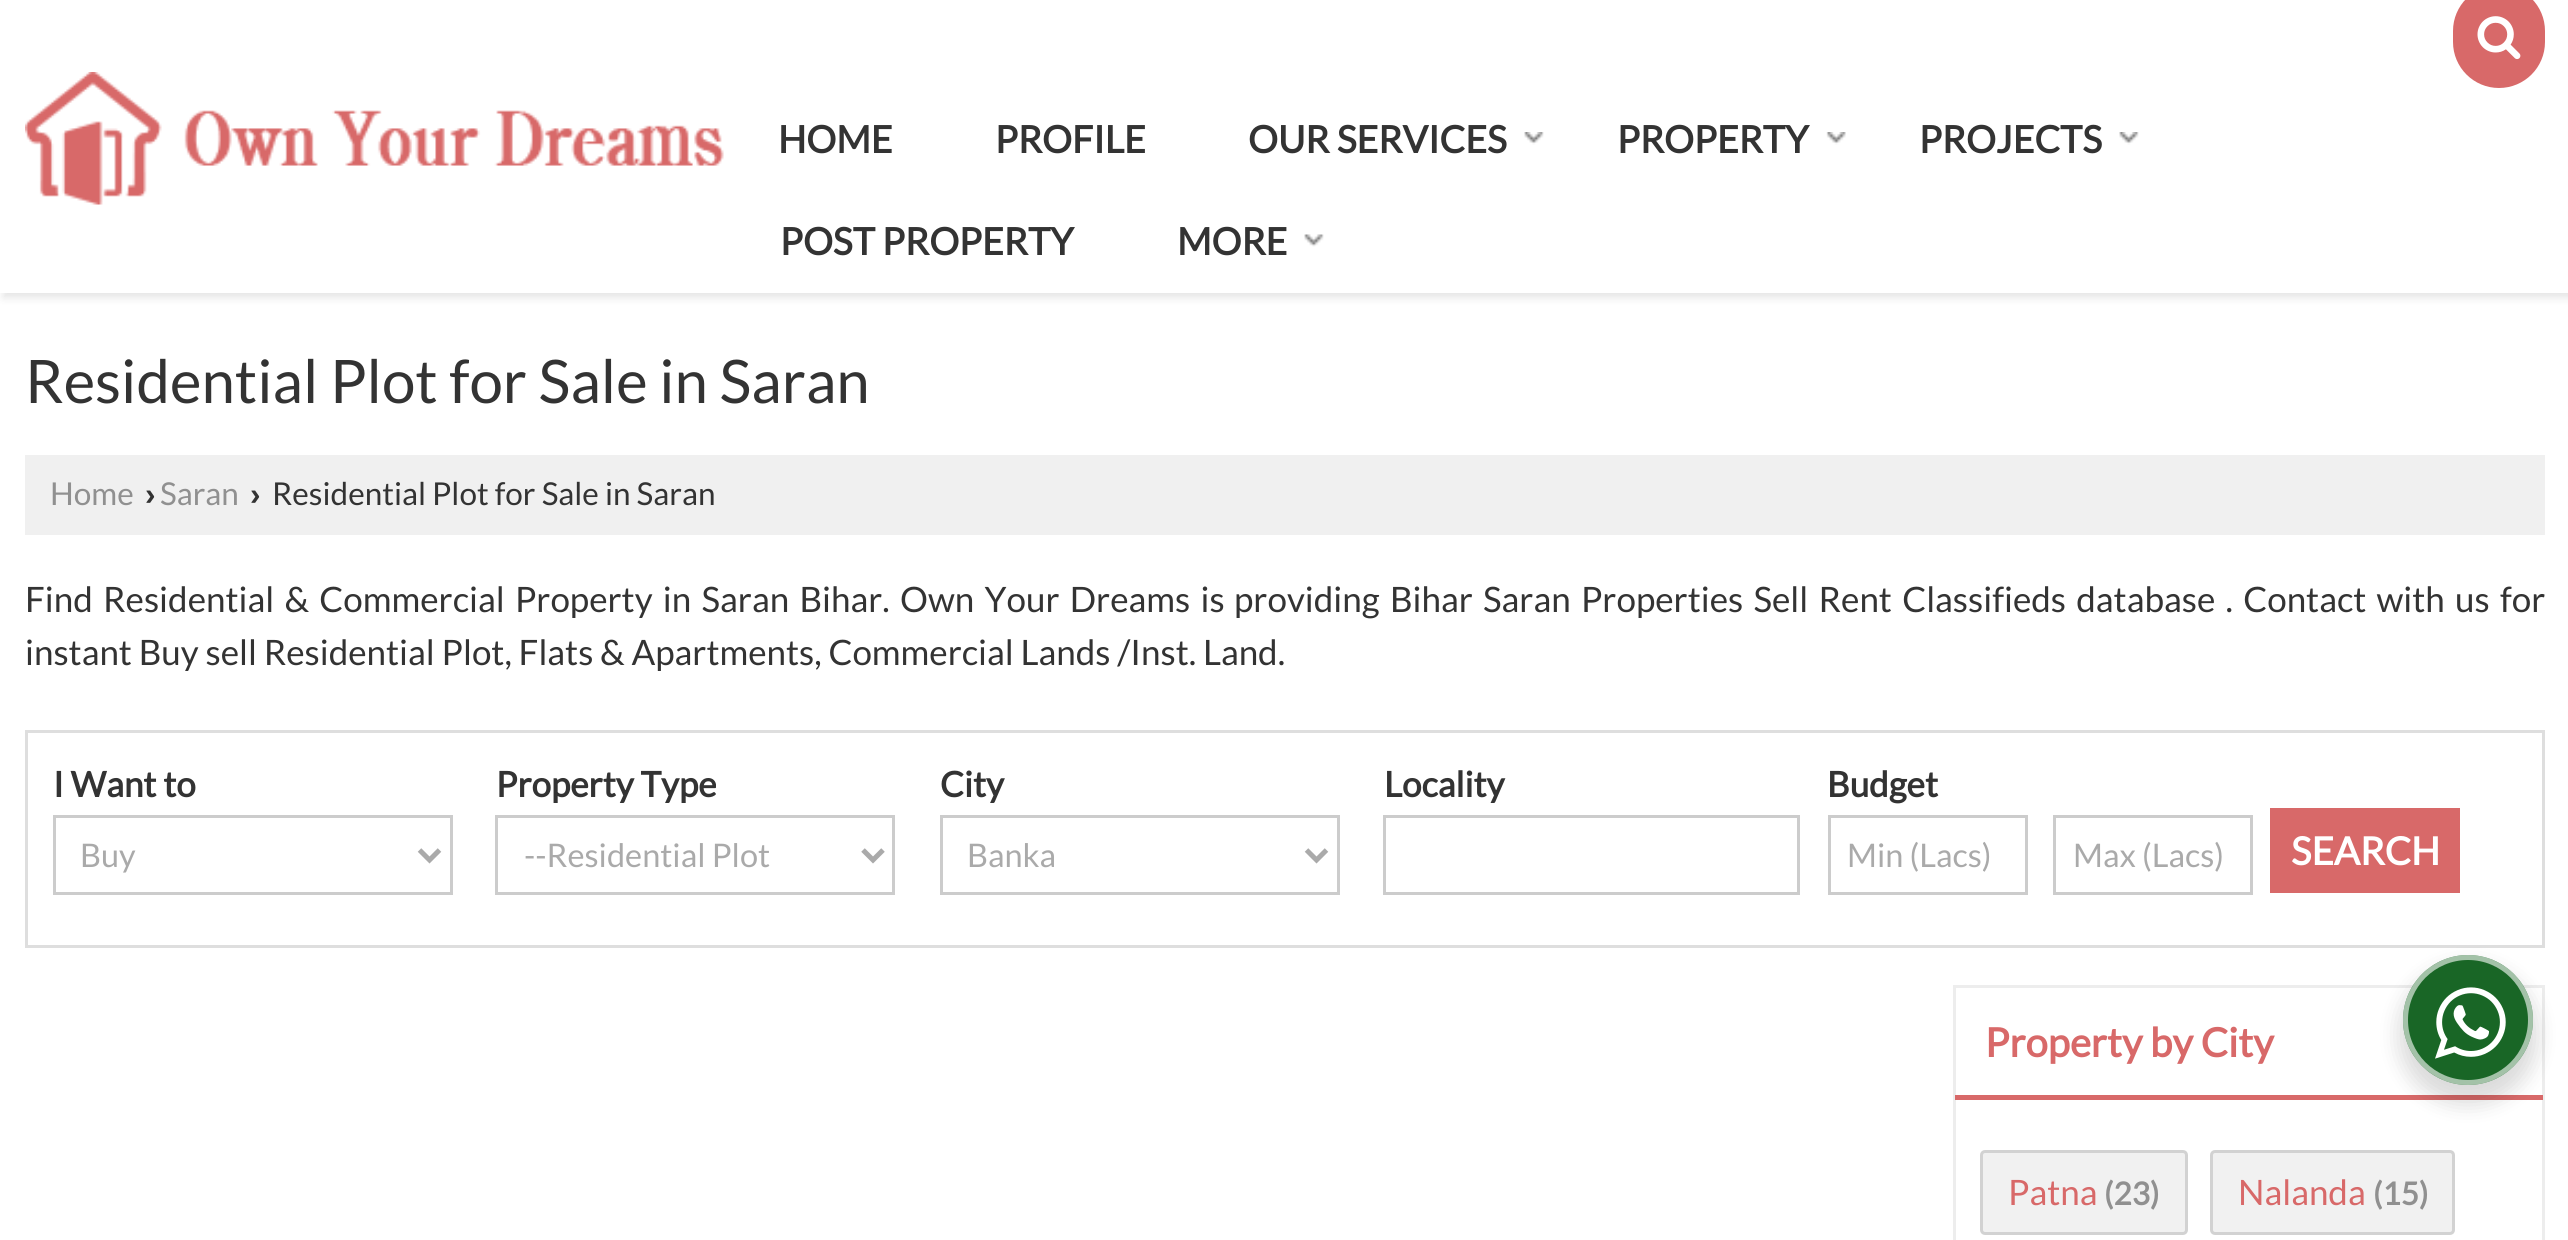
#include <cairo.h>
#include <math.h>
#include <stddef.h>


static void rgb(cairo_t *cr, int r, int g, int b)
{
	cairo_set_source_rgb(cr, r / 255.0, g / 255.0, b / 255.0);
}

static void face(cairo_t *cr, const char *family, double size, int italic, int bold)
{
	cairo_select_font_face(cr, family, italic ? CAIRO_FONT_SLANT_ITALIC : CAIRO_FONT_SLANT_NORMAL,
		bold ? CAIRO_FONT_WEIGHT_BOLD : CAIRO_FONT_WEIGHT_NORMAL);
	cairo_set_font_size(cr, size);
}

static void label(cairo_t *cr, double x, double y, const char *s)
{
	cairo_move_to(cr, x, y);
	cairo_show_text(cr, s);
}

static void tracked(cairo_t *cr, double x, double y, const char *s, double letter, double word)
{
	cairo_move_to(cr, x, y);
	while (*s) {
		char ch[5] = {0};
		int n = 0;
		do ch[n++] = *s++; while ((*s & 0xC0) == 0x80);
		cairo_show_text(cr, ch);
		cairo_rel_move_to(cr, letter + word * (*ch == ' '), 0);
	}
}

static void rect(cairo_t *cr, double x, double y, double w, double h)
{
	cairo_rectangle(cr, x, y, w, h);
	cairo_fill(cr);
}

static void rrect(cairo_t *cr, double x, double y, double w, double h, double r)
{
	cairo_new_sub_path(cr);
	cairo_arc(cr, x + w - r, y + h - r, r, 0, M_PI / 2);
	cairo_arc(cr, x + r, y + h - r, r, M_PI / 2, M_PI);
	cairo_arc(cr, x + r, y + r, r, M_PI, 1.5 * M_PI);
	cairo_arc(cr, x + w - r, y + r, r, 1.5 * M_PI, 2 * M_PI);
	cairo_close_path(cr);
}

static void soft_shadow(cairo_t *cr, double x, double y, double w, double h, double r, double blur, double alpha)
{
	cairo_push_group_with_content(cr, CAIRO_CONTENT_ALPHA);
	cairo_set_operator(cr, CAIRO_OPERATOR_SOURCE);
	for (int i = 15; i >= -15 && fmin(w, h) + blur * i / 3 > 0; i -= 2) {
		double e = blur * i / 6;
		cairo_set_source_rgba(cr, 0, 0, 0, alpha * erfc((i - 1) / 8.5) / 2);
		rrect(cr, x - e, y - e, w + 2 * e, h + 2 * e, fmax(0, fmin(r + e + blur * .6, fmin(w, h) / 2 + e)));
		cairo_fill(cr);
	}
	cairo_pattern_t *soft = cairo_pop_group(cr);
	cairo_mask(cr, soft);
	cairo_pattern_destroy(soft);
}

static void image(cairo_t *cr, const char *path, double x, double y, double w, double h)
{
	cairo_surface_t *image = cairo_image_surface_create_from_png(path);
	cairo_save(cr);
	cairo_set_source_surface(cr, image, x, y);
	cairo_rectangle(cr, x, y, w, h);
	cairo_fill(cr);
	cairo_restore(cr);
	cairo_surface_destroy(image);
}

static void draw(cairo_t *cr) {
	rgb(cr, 255, 255, 255);
	cairo_paint(cr);
	cairo_save(cr);
	cairo_set_fill_rule(cr, CAIRO_FILL_RULE_EVEN_ODD);
	cairo_new_path(cr);
	cairo_move_to(cr, 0, 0);
	cairo_line_to(cr, 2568, 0);
	cairo_line_to(cr, 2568, 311);
	cairo_line_to(cr, 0, 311);
	cairo_close_path(cr);
	cairo_move_to(cr, 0, -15);
	cairo_line_to(cr, 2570, -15);
	cairo_line_to(cr, 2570, 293);
	cairo_line_to(cr, 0, 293);
	cairo_close_path(cr);
	cairo_clip(cr);
	rgb(cr, 0, 0, 0);
	soft_shadow(cr, 3, -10, 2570, 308, 0, 4, 0.1);
	cairo_restore(cr);
	image(cr, "image0.png", 25, 72, 699, 133);
	rgb(cr, 216, 105, 105);
	rrect(cr, 2453, -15, 92, 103, 46);
	cairo_fill(cr);
	image(cr, "image1.png", 2477, 16, 44, 44);
	face(cr, "Lato", 37.5, 0, 1);
	rgb(cr, 51, 51, 51);
	label(cr, 778, 153, "HOME");
	label(cr, 995, 153, "PROFILE");
	label(cr, 1248, 153, "OUR SERVICES");
	image(cr, "image2.png", 1524, 132, 20, 13);
	label(cr, 1617, 153, "PROPERTY");
	image(cr, "image3.png", 1826, 132, 20, 13);
	label(cr, 1919, 153, "PROJECTS");
	image(cr, "image2.png", 2119, 132, 20, 13);
	label(cr, 780, 255, "POST PROPERTY");
	label(cr, 1177, 255, "MORE");
	image(cr, "image4.png", 1304, 234, 20, 13);
	face(cr, "Lato", 60, 0, 0);
	label(cr, 25, 403, "Residential Plot for Sale in Saran");
	rgb(cr, 240, 240, 240);
	rect(cr, 25, 455, 2520, 80);
	face(cr, "Lato", 31.5, 0, 0);
	rgb(cr, 144, 144, 144);
	label(cr, 50, 505, "Home");
	face(cr, "Liberation Sans", 31.5, 0, 1);
	rgb(cr, 51, 51, 51);
	label(cr, 145, 505, "›");
	face(cr, "Lato", 31.5, 0, 0);
	rgb(cr, 144, 144, 144);
	label(cr, 160, 505, "Saran");
	face(cr, "Liberation Sans", 31.5, 0, 1);
	rgb(cr, 51, 51, 51);
	label(cr, 250, 505, "›");
	face(cr, "Lato", 31.5, 0, 0);
	label(cr, 272, 505, "Residential Plot for Sale in Saran");
	face(cr, "Lato", 35, 0, 0);
	tracked(cr, 25, 612, "Find Residential & Commercial Property in Saran Bihar. Own Your Dreams is", 0, 3.5);
	tracked(cr, 1234, 612, "providing Bihar Saran Properties Sell Rent Classifieds database . Contact with us for", 0, 3.5);
	label(cr, 25, 665, "instant Buy sell Residential Plot, Flats & Apartments, Commercial Lands /Inst. Land.");
	cairo_rectangle(cr, 26.5, 731.5, 2517, 215);
	rgb(cr, 222, 222, 222);
	cairo_set_line_width(cr, 3);
	cairo_stroke(cr);
	face(cr, "Lato", 35, 0, 1);
	rgb(cr, 51, 51, 51);
	label(cr, 53, 797, "I Want to");
	cairo_rectangle(cr, 54.5, 816.5, 397, 77);
	rgb(cr, 204, 204, 204);
	cairo_stroke(cr);
	cairo_new_path(cr);
	cairo_move_to(cr, 419.5, 850);
	cairo_line_to(cr, 429.5, 860);
	cairo_line_to(cr, 439.5, 850);
	rgb(cr, 170, 170, 170);
	cairo_set_line_width(cr, 5);
	cairo_stroke(cr);
	face(cr, "Lato", 32.5, 0, 0);
	label(cr, 80, 867, "Buy");
	face(cr, "Lato", 35, 0, 1);
	rgb(cr, 51, 51, 51);
	label(cr, 496, 797, "Property Type");
	cairo_rectangle(cr, 496.5, 816.5, 397, 77);
	rgb(cr, 204, 204, 204);
	cairo_set_line_width(cr, 3);
	cairo_stroke(cr);
	cairo_new_path(cr);
	cairo_move_to(cr, 863, 850);
	cairo_line_to(cr, 873, 860);
	cairo_line_to(cr, 883, 850);
	rgb(cr, 170, 170, 170);
	cairo_set_line_width(cr, 5);
	cairo_stroke(cr);
	face(cr, "Lato", 32.5, 0, 0);
	label(cr, 524, 867, "--Residential Plot");
	face(cr, "Lato", 35, 0, 1);
	rgb(cr, 51, 51, 51);
	label(cr, 940, 797, "City");
	cairo_rectangle(cr, 941.5, 816.5, 397, 77);
	rgb(cr, 204, 204, 204);
	cairo_set_line_width(cr, 3);
	cairo_stroke(cr);
	cairo_new_path(cr);
	cairo_move_to(cr, 1306.5, 850);
	cairo_line_to(cr, 1316.5, 860);
	cairo_line_to(cr, 1326.5, 850);
	rgb(cr, 170, 170, 170);
	cairo_set_line_width(cr, 5);
	cairo_stroke(cr);
	face(cr, "Lato", 32.5, 0, 0);
	label(cr, 967, 867, "Banka");
	face(cr, "Lato", 35, 0, 1);
	rgb(cr, 51, 51, 51);
	label(cr, 1384, 797, "Locality");
	cairo_rectangle(cr, 1384.5, 816.5, 414, 77);
	rgb(cr, 204, 204, 204);
	cairo_set_line_width(cr, 3);
	cairo_stroke(cr);
	rgb(cr, 51, 51, 51);
	label(cr, 1827, 797, "Budget");
	cairo_rectangle(cr, 1829.5, 816.5, 197, 77);
	rgb(cr, 204, 204, 204);
	cairo_stroke(cr);
	face(cr, "Lato", 32.5, 0, 0);
	rgb(cr, 170, 170, 170);
	label(cr, 1847, 867, "Min (Lacs)");
	cairo_rectangle(cr, 2054.5, 816.5, 197, 77);
	rgb(cr, 204, 204, 204);
	cairo_stroke(cr);
	rgb(cr, 170, 170, 170);
	label(cr, 2073, 867, "Max (Lacs)");
	rgb(cr, 216, 105, 105);
	rect(cr, 2270, 808, 190, 85);
	face(cr, "Lato", 38.5, 0, 1);
	rgb(cr, 255, 255, 255);
	label(cr, 2291, 865, "SEARCH");
	cairo_rectangle(cr, 1954.5, 986.5, 589, 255);
	rgb(cr, 237, 237, 237);
	cairo_stroke(cr);
	rgb(cr, 216, 105, 105);
	rect(cr, 1955, 1095, 588, 5);
	face(cr, "Lato", 40, 0, 1);
	label(cr, 1985, 1057, "Property by City");
	rgb(cr, 241, 241, 241);
	rrect(cr, 1980, 1150, 208, 85, 5);
	cairo_fill(cr);
	rrect(cr, 1981.5, 1151.5, 205, 82, 3.5);
	cairo_set_source_rgba(cr, 0, 0, 0, 0.13);
	cairo_stroke(cr);
	face(cr, "Lato", 35, 0, 0);
	rgb(cr, 216, 105, 105);
	label(cr, 2008, 1205, "Patna");
	face(cr, "Lato", 31.5, 0, 1);
	rgb(cr, 144, 144, 144);
	label(cr, 2104, 1205, "(23)");
	rgb(cr, 241, 241, 241);
	rrect(cr, 2210, 1150, 245, 85, 5);
	cairo_fill(cr);
	rrect(cr, 2211.5, 1151.5, 242, 82, 3.5);
	cairo_set_source_rgba(cr, 0, 0, 0, 0.13);
	cairo_stroke(cr);
	face(cr, "Lato", 35, 0, 0);
	rgb(cr, 216, 105, 105);
	label(cr, 2238, 1205, "Nalanda");
	face(cr, "Lato", 31.5, 0, 1);
	rgb(cr, 144, 144, 144);
	label(cr, 2373, 1205, "(15)");
	rgb(cr, 0, 0, 0);
	soft_shadow(cr, 2398, 965, 140, 140, 70, 10, 0.14);
	rgb(cr, 25, 102, 38);
	cairo_arc(cr, 2468, 1020, 65, 0, 2 * M_PI);
	cairo_fill(cr);
	cairo_arc(cr, 2468, 1020, 62.5, 0, 2 * M_PI);
	cairo_set_source_rgba(cr, 1, 1, 1, 0.6);
	cairo_set_line_width(cr, 5);
	cairo_stroke(cr);
	image(cr, "image5.png", 2435, 987, 71, 72);
}

int main(void) {
	cairo_surface_t *surface = cairo_image_surface_create(CAIRO_FORMAT_RGB24, 2568, 1240);
	cairo_t *cr = cairo_create(surface);
	cairo_font_options_t *options = cairo_font_options_create();
	cairo_font_options_set_hint_metrics(options, CAIRO_HINT_METRICS_OFF);
	cairo_font_options_set_hint_style(options, CAIRO_HINT_STYLE_NONE);
	cairo_set_font_options(cr, options);
	cairo_set_miter_limit(cr, 4);
	draw(cr);
	cairo_surface_write_to_png(surface, "render.png");
	cairo_font_options_destroy(options);
	cairo_destroy(cr);
	cairo_surface_destroy(surface);
	return 0;
}
